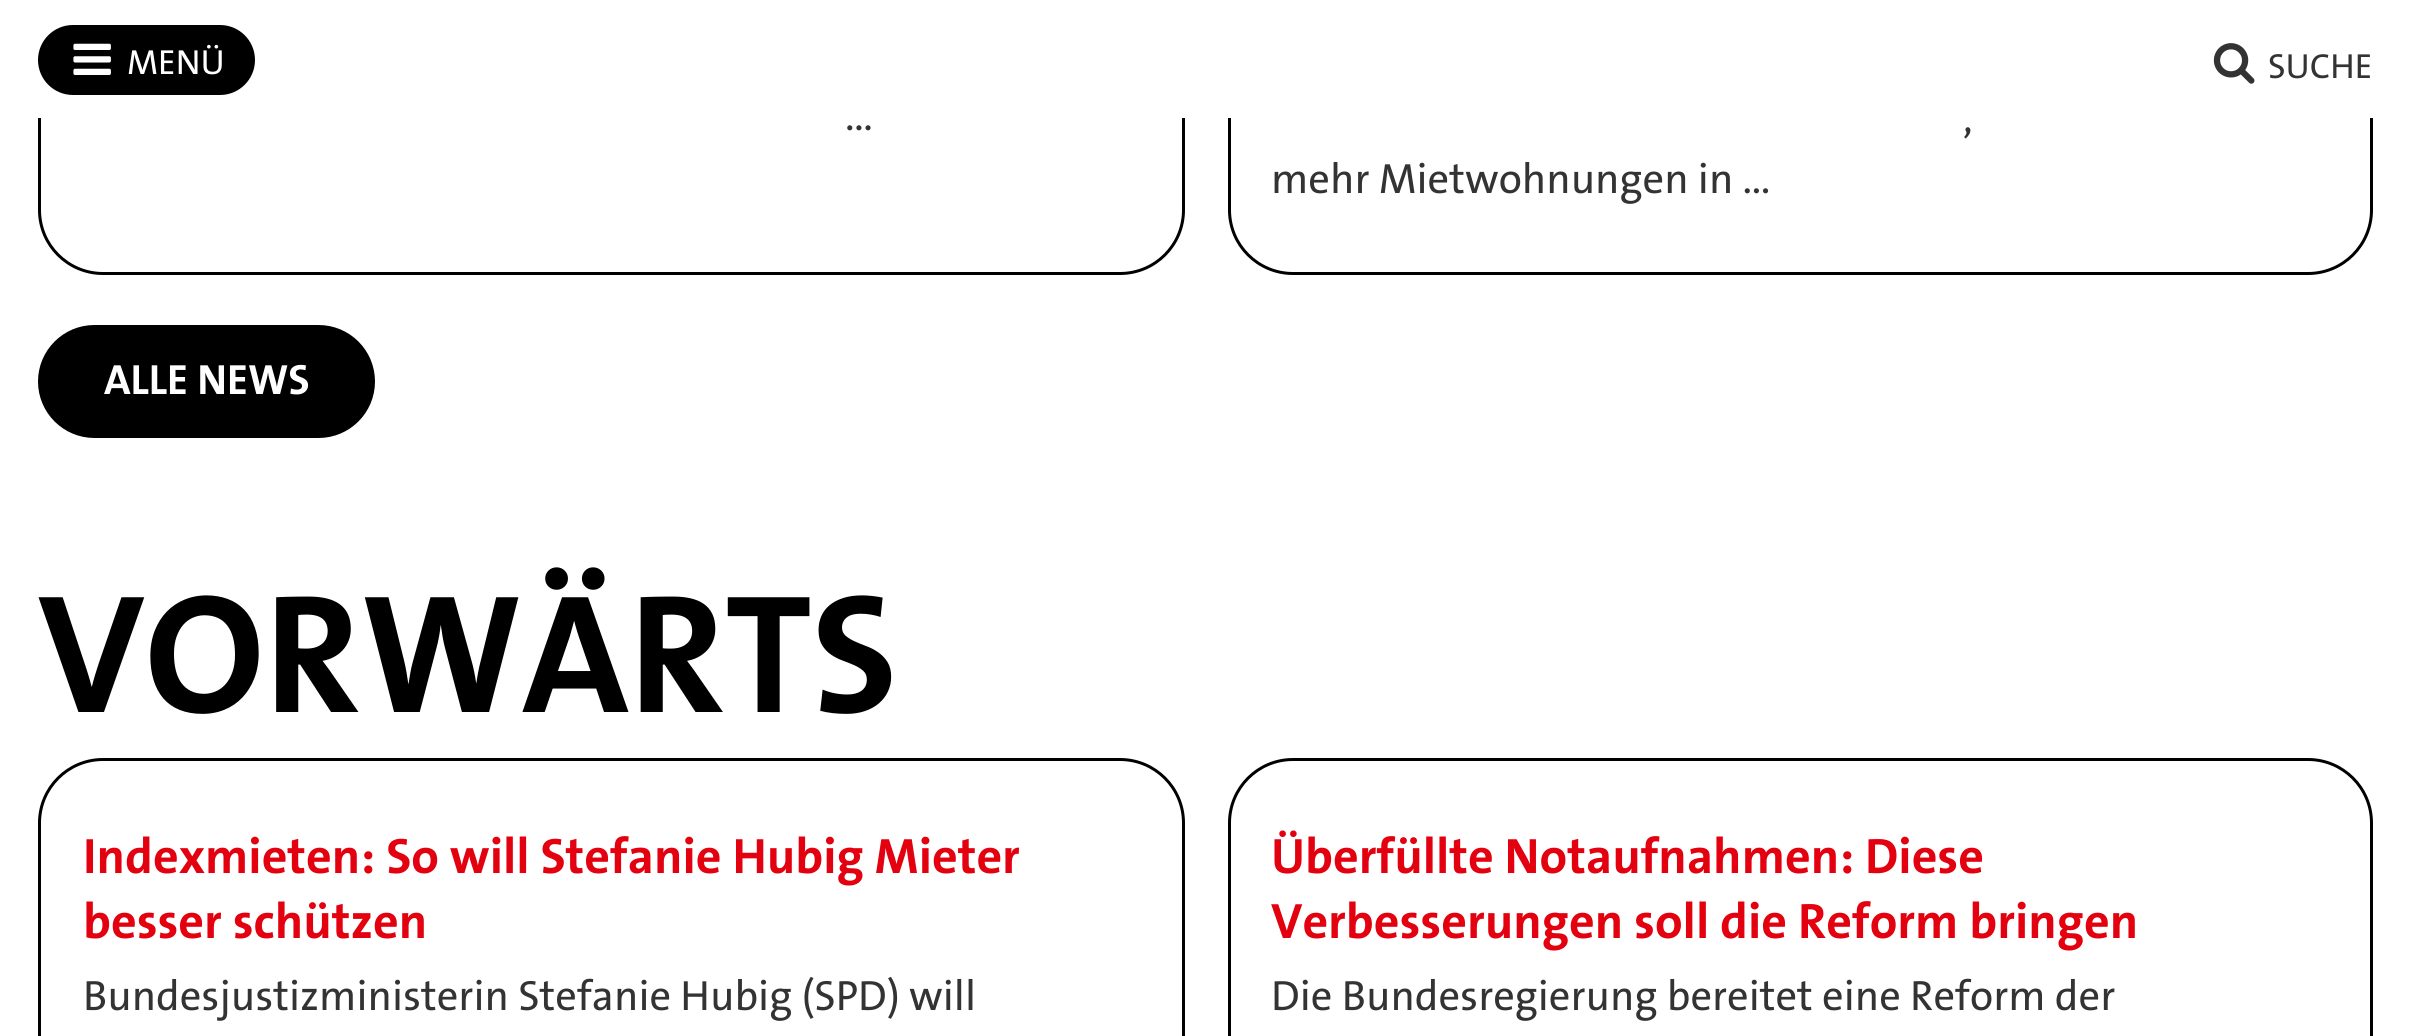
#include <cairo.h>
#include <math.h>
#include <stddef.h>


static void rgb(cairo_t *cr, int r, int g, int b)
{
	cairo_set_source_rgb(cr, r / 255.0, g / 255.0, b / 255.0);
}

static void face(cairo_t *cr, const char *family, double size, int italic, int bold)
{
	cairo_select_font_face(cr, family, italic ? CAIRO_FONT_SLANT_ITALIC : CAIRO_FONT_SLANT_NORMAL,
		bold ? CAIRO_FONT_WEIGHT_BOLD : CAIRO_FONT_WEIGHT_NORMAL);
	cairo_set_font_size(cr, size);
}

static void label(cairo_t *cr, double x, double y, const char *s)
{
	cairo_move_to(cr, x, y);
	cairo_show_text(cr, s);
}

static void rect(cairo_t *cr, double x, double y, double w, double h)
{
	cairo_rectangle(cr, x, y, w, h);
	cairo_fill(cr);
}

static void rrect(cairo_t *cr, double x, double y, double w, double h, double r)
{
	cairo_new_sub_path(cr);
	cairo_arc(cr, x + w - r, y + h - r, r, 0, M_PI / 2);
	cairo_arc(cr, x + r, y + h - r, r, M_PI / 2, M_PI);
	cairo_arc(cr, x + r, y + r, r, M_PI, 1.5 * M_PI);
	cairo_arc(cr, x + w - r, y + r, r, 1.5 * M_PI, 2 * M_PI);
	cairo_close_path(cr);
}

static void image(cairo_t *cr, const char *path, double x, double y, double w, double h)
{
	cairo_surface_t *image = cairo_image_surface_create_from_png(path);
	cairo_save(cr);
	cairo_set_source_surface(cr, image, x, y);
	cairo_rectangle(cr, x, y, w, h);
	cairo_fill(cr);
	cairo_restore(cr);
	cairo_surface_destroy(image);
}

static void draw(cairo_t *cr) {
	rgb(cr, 255, 255, 255);
	cairo_paint(cr);
	rrect(cr, 39.5, -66.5, 1144, 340, 63.5);
	rgb(cr, 0, 0, 0);
	cairo_set_line_width(cr, 3);
	cairo_stroke(cr);
	rrect(cr, 1229.5, -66.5, 1142, 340, 63.5);
	cairo_stroke(cr);
	rgb(cr, 255, 255, 255);
	rect(cr, 38, 0, 2335, 118);
	rgb(cr, 0, 0, 0);
	rrect(cr, 40.5, 27.5, 212, 65, 32.5);
	cairo_fill_preserve(cr);
	cairo_set_line_width(cr, 5);
	cairo_stroke(cr);
	image(cr, "image0.png", 73, 43, 38, 32);
	face(cr, "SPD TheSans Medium", 35, 0, 0);
	rgb(cr, 255, 255, 255);
	label(cr, 127, 74, "MENÜ");
	image(cr, "image1.png", 2213, 43, 42, 41);
	rgb(cr, 51, 51, 51);
	label(cr, 2268, 78, "SUCHE");
	face(cr, "SPD TheSans Medium", 42.5, 0, 0);
	label(cr, 845, 130, "…");
	label(cr, 1963, 132, ",");
	label(cr, 1271, 193, "mehr Mietwohnungen in …");
	rgb(cr, 0, 0, 0);
	rrect(cr, 39.5, 326.5, 334, 110, 55);
	cairo_fill_preserve(cr);
	cairo_set_line_width(cr, 3);
	cairo_stroke(cr);
	face(cr, "SPD TheSans", 42.5, 0, 1);
	rgb(cr, 255, 255, 255);
	label(cr, 104, 394, "ALLE NEWS");
	face(cr, "SPD TheSans", 170, 0, 1);
	rgb(cr, 0, 0, 0);
	label(cr, 38, 712, "VORWÄRTS");
	rrect(cr, 39.5, 759.5, 1144, 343, 63.5);
	cairo_stroke(cr);
	face(cr, "SPD TheSans", 50, 0, 1);
	rgb(cr, 227, 0, 15);
	label(cr, 83, 873, "Indexmieten: So will Stefanie Hubig Mieter");
	label(cr, 83, 938, "besser schützen");
	face(cr, "SPD TheSans Medium", 42.5, 0, 0);
	rgb(cr, 51, 51, 51);
	label(cr, 83, 1010, "Bundesjustizministerin Stefanie Hubig (SPD) will");
	rrect(cr, 1229.5, 759.5, 1142, 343, 63.5);
	rgb(cr, 0, 0, 0);
	cairo_stroke(cr);
	face(cr, "SPD TheSans", 50, 0, 1);
	rgb(cr, 227, 0, 15);
	label(cr, 1271, 873, "Überfüllte Notaufnahmen: Diese");
	label(cr, 1271, 938, "Verbesserungen soll die Reform bringen");
	face(cr, "SPD TheSans Medium", 42.5, 0, 0);
	rgb(cr, 51, 51, 51);
	label(cr, 1271, 1010, "Die Bundesregierung bereitet eine Reform der");
}

int main(void) {
	cairo_surface_t *surface = cairo_image_surface_create(CAIRO_FORMAT_RGB24, 2410, 1036);
	cairo_t *cr = cairo_create(surface);
	cairo_font_options_t *options = cairo_font_options_create();
	cairo_font_options_set_hint_metrics(options, CAIRO_HINT_METRICS_OFF);
	cairo_font_options_set_hint_style(options, CAIRO_HINT_STYLE_NONE);
	cairo_set_font_options(cr, options);
	cairo_set_miter_limit(cr, 4);
	draw(cr);
	cairo_surface_write_to_png(surface, "render.png");
	cairo_font_options_destroy(options);
	cairo_destroy(cr);
	cairo_surface_destroy(surface);
	return 0;
}
